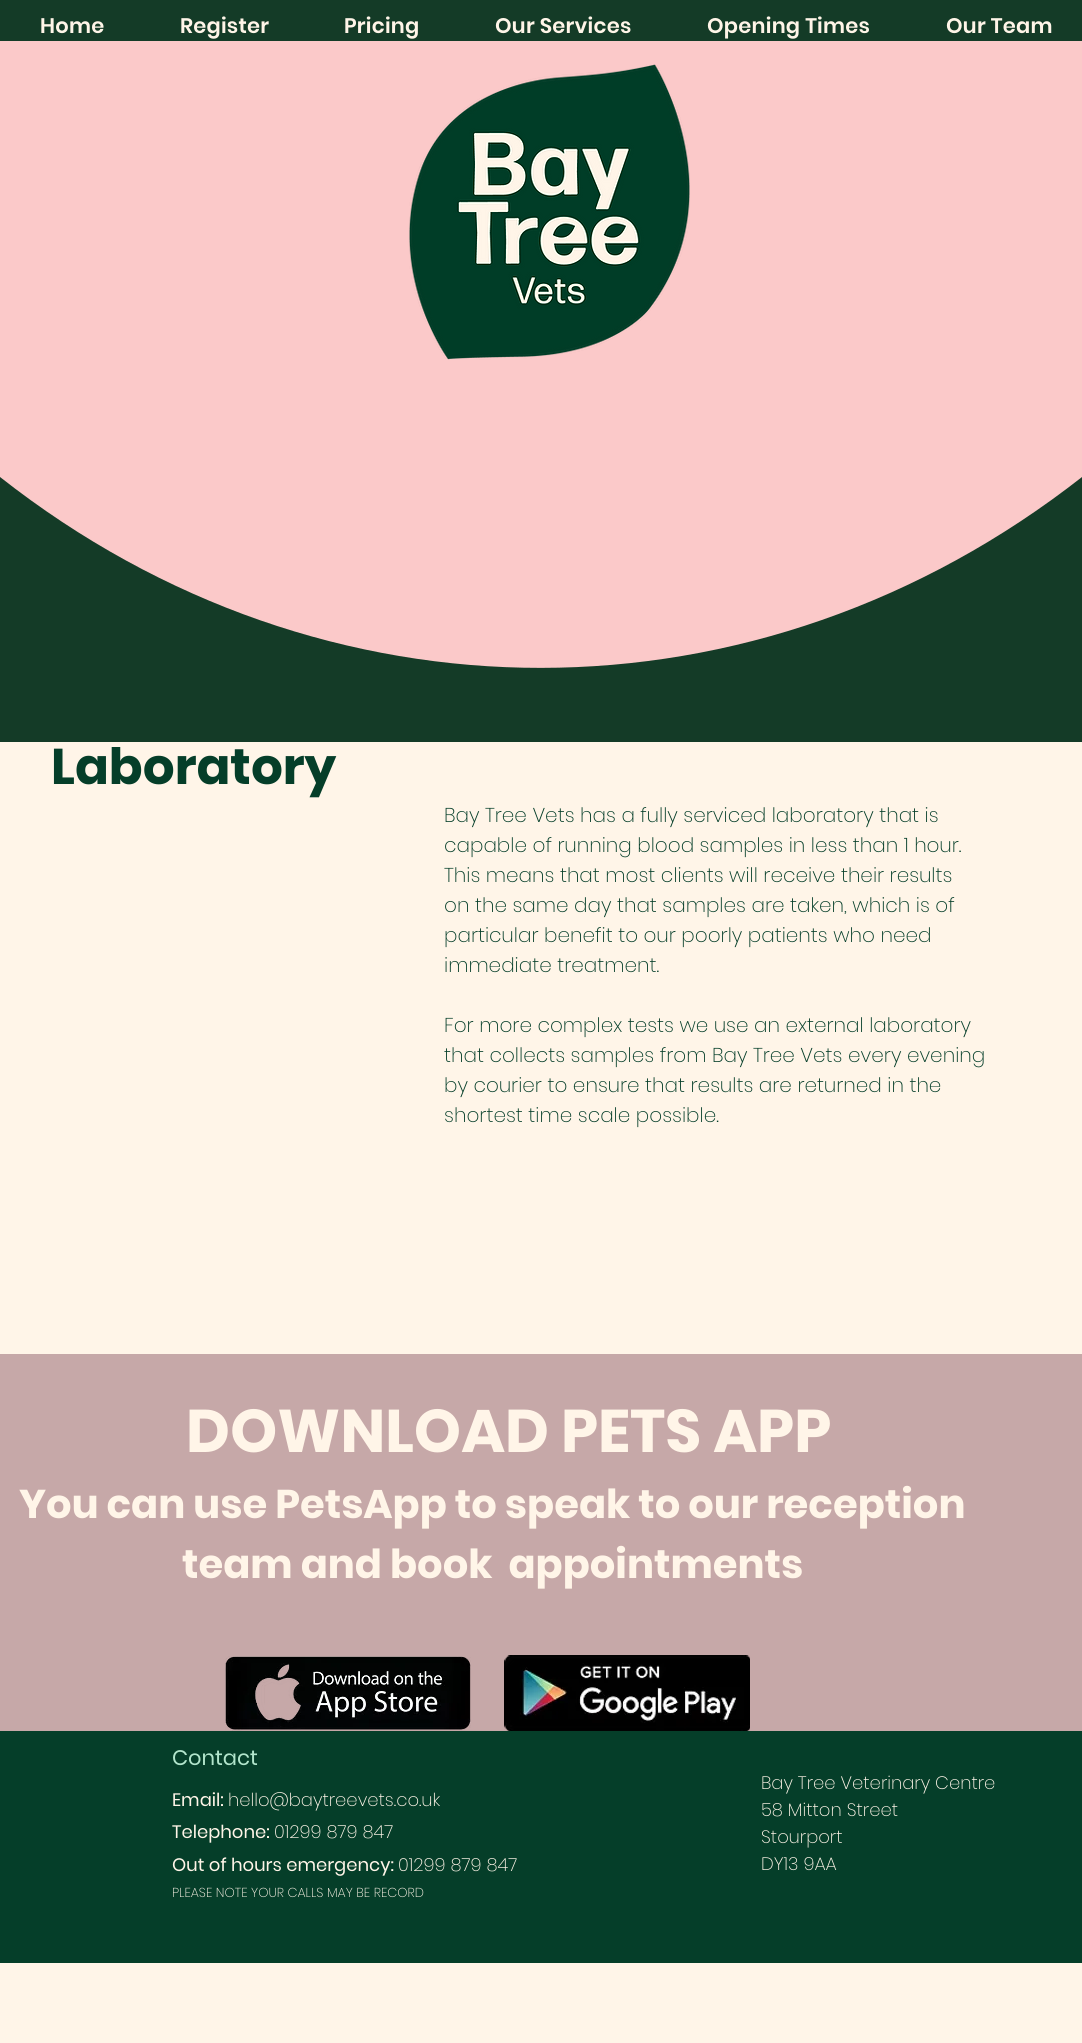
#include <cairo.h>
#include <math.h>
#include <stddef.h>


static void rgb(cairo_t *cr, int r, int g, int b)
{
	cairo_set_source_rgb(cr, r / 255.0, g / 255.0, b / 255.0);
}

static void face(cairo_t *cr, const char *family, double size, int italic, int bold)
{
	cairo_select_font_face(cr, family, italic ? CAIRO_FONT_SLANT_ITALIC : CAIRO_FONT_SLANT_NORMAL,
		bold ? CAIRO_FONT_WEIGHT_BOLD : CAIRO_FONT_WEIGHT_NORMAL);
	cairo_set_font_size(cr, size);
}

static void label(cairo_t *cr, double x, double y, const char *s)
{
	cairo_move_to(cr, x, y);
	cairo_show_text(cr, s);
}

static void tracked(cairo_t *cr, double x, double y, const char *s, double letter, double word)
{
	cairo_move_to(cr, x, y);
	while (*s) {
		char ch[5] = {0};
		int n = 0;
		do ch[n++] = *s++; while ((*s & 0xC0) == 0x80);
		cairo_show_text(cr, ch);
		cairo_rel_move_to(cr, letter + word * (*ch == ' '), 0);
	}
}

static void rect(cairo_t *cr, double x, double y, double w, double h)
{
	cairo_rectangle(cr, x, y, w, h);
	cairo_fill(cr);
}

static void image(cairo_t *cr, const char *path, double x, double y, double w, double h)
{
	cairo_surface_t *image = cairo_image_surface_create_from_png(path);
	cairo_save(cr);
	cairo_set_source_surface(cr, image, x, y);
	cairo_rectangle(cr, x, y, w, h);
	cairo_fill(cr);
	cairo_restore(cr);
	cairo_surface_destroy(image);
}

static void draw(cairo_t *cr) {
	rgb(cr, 255, 245, 232);
	cairo_paint(cr);
	rgb(cr, 20, 59, 39);
	rect(cr, 0, 0, 1082, 742);
	face(cr, "Poppins SemiBold", 21, 0, 0);
	rgb(cr, 255, 245, 232);
	tracked(cr, 40, 33, "Home", 0.25, 0);
	tracked(cr, 180, 33, "Register", 0.25, 0);
	tracked(cr, 344, 33, "Pricing", 0.25, 0);
	tracked(cr, 495, 33, "Our Services", 0.25, 0);
	tracked(cr, 707, 33, "Opening Times", 0.25, 0);
	tracked(cr, 946, 33, "Our Team", 0.25, 0);
	rgb(cr, 251, 201, 201);
	rect(cr, 0, 41, 1082, 627);
	image(cr, "image0.png", 409, 64, 281, 296);
	cairo_save(cr);
	cairo_rectangle(cr, 0, 468, 1082, 200);
	cairo_clip(cr);
	rgb(cr, 20, 59, 39);
	cairo_set_fill_rule(cr, CAIRO_FILL_RULE_EVEN_ODD);
	cairo_new_path(cr);
	cairo_move_to(cr, 1082, 477);
	cairo_curve_to(cr, 758, 731, 324, 732, 0, 477);
	cairo_line_to(cr, 0, 468);
	cairo_line_to(cr, 1082, 468);
	cairo_close_path(cr);
	cairo_move_to(cr, 0, 669);
	cairo_line_to(cr, 1082, 669);
	cairo_line_to(cr, 1082, 468);
	cairo_line_to(cr, 0, 468);
	cairo_close_path(cr);
	cairo_fill(cr);
	cairo_restore(cr);
	face(cr, "Poppins", 50, 0, 1);
	rgb(cr, 5, 62, 41);
	label(cr, 51, 784, "Laboratory");
	face(cr, "Poppins ExtraLight", 20, 0, 0);
	label(cr, 444, 822, "Bay Tree Vets has a fully serviced laboratory that is");
	label(cr, 444, 852, "capable of running blood samples in less than 1 hour.");
	label(cr, 444, 882, "This means that most clients will receive their results");
	label(cr, 444, 912, "on the same day that samples are taken, which is of");
	label(cr, 444, 942, "particular benefit to our poorly patients who need");
	label(cr, 444, 972, "immediate treatment.");
	label(cr, 444, 1032, "For more complex tests we use an external laboratory");
	label(cr, 444, 1062, "that collects samples from Bay Tree Vets every evening");
	label(cr, 444, 1092, "by courier to ensure that results are returned in the");
	label(cr, 444, 1122, "shortest time scale possible.");
	rgb(cr, 198, 168, 168);
	rect(cr, 0, 1354, 1082, 377);
	face(cr, "Poppins", 60, 0, 1);
	rgb(cr, 255, 245, 232);
	label(cr, 186, 1452, "DOWNLOAD PETS APP");
	face(cr, "Poppins", 40, 0, 1);
	label(cr, 19, 1518, "You can use PetsApp to speak to our reception");
	label(cr, 182, 1578, "team and book  appointments");
	image(cr, "image1.png", 225, 1656, 246, 75);
	image(cr, "image2.png", 504, 1655, 246, 76);
	rgb(cr, 5, 62, 41);
	rect(cr, 0, 1731, 1082, 232);
	face(cr, "Poppins", 21, 0, 0);
	rgb(cr, 178, 229, 204);
	label(cr, 172, 1765, "Contact");
	face(cr, "Poppins", 18, 0, 0);
	rgb(cr, 255, 245, 232);
	label(cr, 172, 1806, "Email:");
	face(cr, "Poppins ExtraLight", 18, 0, 0);
	label(cr, 228, 1806, "hello@baytreevets.co.uk");
	face(cr, "Poppins", 18, 0, 0);
	label(cr, 172, 1838, "Telephone:");
	face(cr, "Poppins ExtraLight", 18, 0, 0);
	label(cr, 274, 1838, "01299 879 847");
	face(cr, "Poppins", 18, 0, 0);
	label(cr, 172, 1871, "Out of hours emergency:");
	face(cr, "Poppins ExtraLight", 18, 0, 0);
	label(cr, 398, 1871, "01299 879 847");
	face(cr, "Poppins ExtraLight", 13, 0, 0);
	label(cr, 172, 1897, "PLEASE NOTE YOUR CALLS MAY BE RECORD");
	face(cr, "Poppins ExtraLight", 18, 0, 0);
	label(cr, 761, 1789, "Bay Tree Veterinary Centre");
	label(cr, 761, 1816, "58 Mitton Street");
	label(cr, 761, 1843, "Stourport");
	label(cr, 761, 1870, "DY13 9AA");
}

int main(void) {
	cairo_surface_t *surface = cairo_image_surface_create(CAIRO_FORMAT_RGB24, 1082, 2043);
	cairo_t *cr = cairo_create(surface);
	cairo_font_options_t *options = cairo_font_options_create();
	cairo_font_options_set_hint_metrics(options, CAIRO_HINT_METRICS_OFF);
	cairo_font_options_set_hint_style(options, CAIRO_HINT_STYLE_NONE);
	cairo_set_font_options(cr, options);
	cairo_set_miter_limit(cr, 4);
	draw(cr);
	cairo_surface_write_to_png(surface, "render.png");
	cairo_font_options_destroy(options);
	cairo_destroy(cr);
	cairo_surface_destroy(surface);
	return 0;
}
